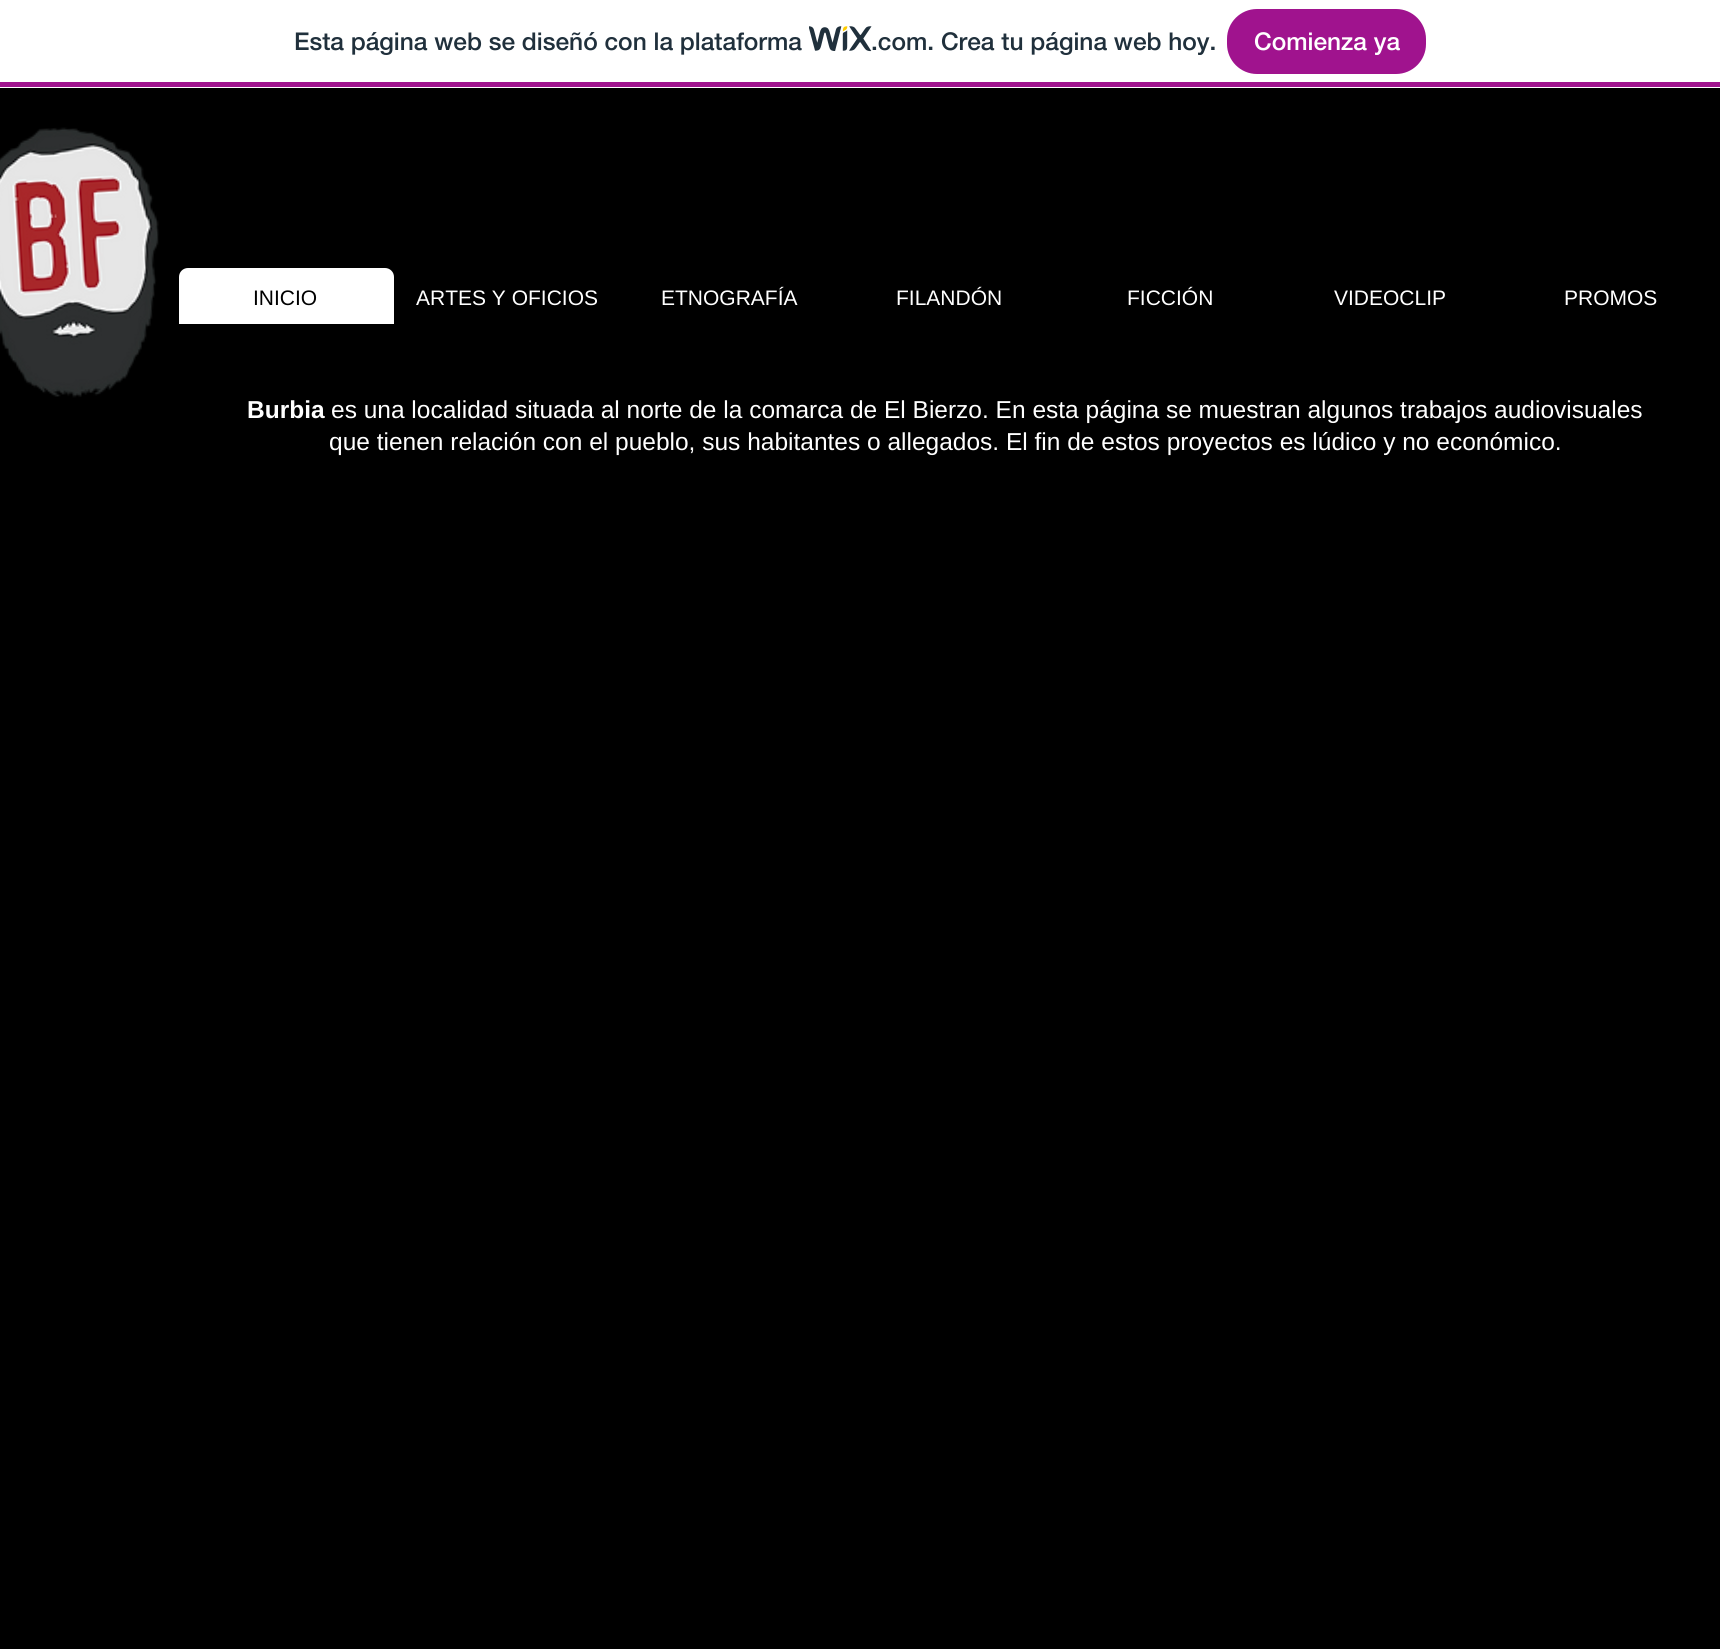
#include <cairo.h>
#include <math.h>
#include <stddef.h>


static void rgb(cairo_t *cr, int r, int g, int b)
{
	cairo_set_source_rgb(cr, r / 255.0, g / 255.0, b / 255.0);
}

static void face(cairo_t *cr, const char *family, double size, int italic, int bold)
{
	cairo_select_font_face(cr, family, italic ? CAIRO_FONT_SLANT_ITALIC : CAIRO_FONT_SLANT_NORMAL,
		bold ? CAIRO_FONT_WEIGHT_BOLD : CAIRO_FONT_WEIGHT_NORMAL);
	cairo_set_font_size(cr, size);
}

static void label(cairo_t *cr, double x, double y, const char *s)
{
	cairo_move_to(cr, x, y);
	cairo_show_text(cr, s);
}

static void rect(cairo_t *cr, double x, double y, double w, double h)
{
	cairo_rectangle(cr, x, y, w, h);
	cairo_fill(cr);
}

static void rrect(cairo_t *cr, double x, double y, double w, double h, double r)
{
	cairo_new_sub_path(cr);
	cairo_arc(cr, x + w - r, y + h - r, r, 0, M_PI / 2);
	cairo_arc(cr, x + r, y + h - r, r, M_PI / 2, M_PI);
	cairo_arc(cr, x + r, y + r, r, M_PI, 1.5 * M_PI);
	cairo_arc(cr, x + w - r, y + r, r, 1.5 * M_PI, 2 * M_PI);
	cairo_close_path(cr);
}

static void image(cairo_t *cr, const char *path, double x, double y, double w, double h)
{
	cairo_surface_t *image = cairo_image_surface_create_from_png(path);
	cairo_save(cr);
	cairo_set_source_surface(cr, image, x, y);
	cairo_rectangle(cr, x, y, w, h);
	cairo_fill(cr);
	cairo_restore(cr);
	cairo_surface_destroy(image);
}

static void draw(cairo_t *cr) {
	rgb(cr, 255, 255, 255);
	cairo_paint(cr);
	rgb(cr, 160, 19, 142);
	rect(cr, 0, 82, 1720, 5);
	face(cr, "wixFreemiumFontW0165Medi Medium", 24.5, 0, 0);
	rgb(cr, 32, 48, 60);
	label(cr, 294, 50, "Esta página web se diseñó con la plataforma");
	image(cr, "image0.png", 809, 26, 63, 26);
	label(cr, 871, 50, ".com. Crea tu página web hoy.");
	rgb(cr, 160, 19, 142);
	rrect(cr, 1228, 10, 197, 63, 29);
	cairo_fill_preserve(cr);
	cairo_stroke(cr);
	rgb(cr, 255, 255, 255);
	label(cr, 1254, 50, "Comienza ya");
	rgb(cr, 0, 0, 0);
	rect(cr, 0, 88, 1720, 1561);
	image(cr, "image1.png", 0, 127, 159, 271);
	rgb(cr, 255, 255, 255);
	cairo_new_path(cr);
	cairo_move_to(cr, 188, 268);
	cairo_line_to(cr, 385, 268);
	cairo_curve_to(cr, 390, 268, 394, 272, 394, 277);
	cairo_line_to(cr, 394, 329);
	cairo_line_to(cr, 179, 329);
	cairo_line_to(cr, 179, 277);
	cairo_curve_to(cr, 179, 272, 183, 268, 188, 268);
	cairo_close_path(cr);
	cairo_fill(cr);
	face(cr, "Liberation Sans", 21, 0, 0);
	rgb(cr, 0, 0, 0);
	label(cr, 253, 305, "INICIO");
	rgb(cr, 255, 255, 255);
	label(cr, 416, 305, "ARTES Y OFICIOS");
	label(cr, 661, 305, "ETNOGRAFÍA");
	label(cr, 896, 305, "FILANDÓN");
	label(cr, 1127, 305, "FICCIÓN");
	label(cr, 1334, 305, "VIDEOCLIP");
	label(cr, 1564, 305, "PROMOS");
	rgb(cr, 0, 0, 0);
	rect(cr, 175, 324, 219, 5);
	face(cr, "Liberation Sans", 24.5, 0, 1);
	rgb(cr, 255, 255, 255);
	label(cr, 247, 418, "Burbia");
	face(cr, "Liberation Sans", 24.5, 0, 0);
	label(cr, 331, 418, "es una localidad situada al norte de la comarca de El Bierzo. En esta página se muestran algunos trabajos audiovisuales");
	label(cr, 329, 450, "que tienen relación con el pueblo, sus habitantes o allegados. El fin de estos proyectos es lúdico y no económico.");
}

int main(void) {
	cairo_surface_t *surface = cairo_image_surface_create(CAIRO_FORMAT_RGB24, 1720, 1649);
	cairo_t *cr = cairo_create(surface);
	cairo_font_options_t *options = cairo_font_options_create();
	cairo_font_options_set_hint_metrics(options, CAIRO_HINT_METRICS_OFF);
	cairo_font_options_set_hint_style(options, CAIRO_HINT_STYLE_NONE);
	cairo_set_font_options(cr, options);
	cairo_set_miter_limit(cr, 4);
	draw(cr);
	cairo_surface_write_to_png(surface, "render.png");
	cairo_font_options_destroy(options);
	cairo_destroy(cr);
	cairo_surface_destroy(surface);
	return 0;
}
